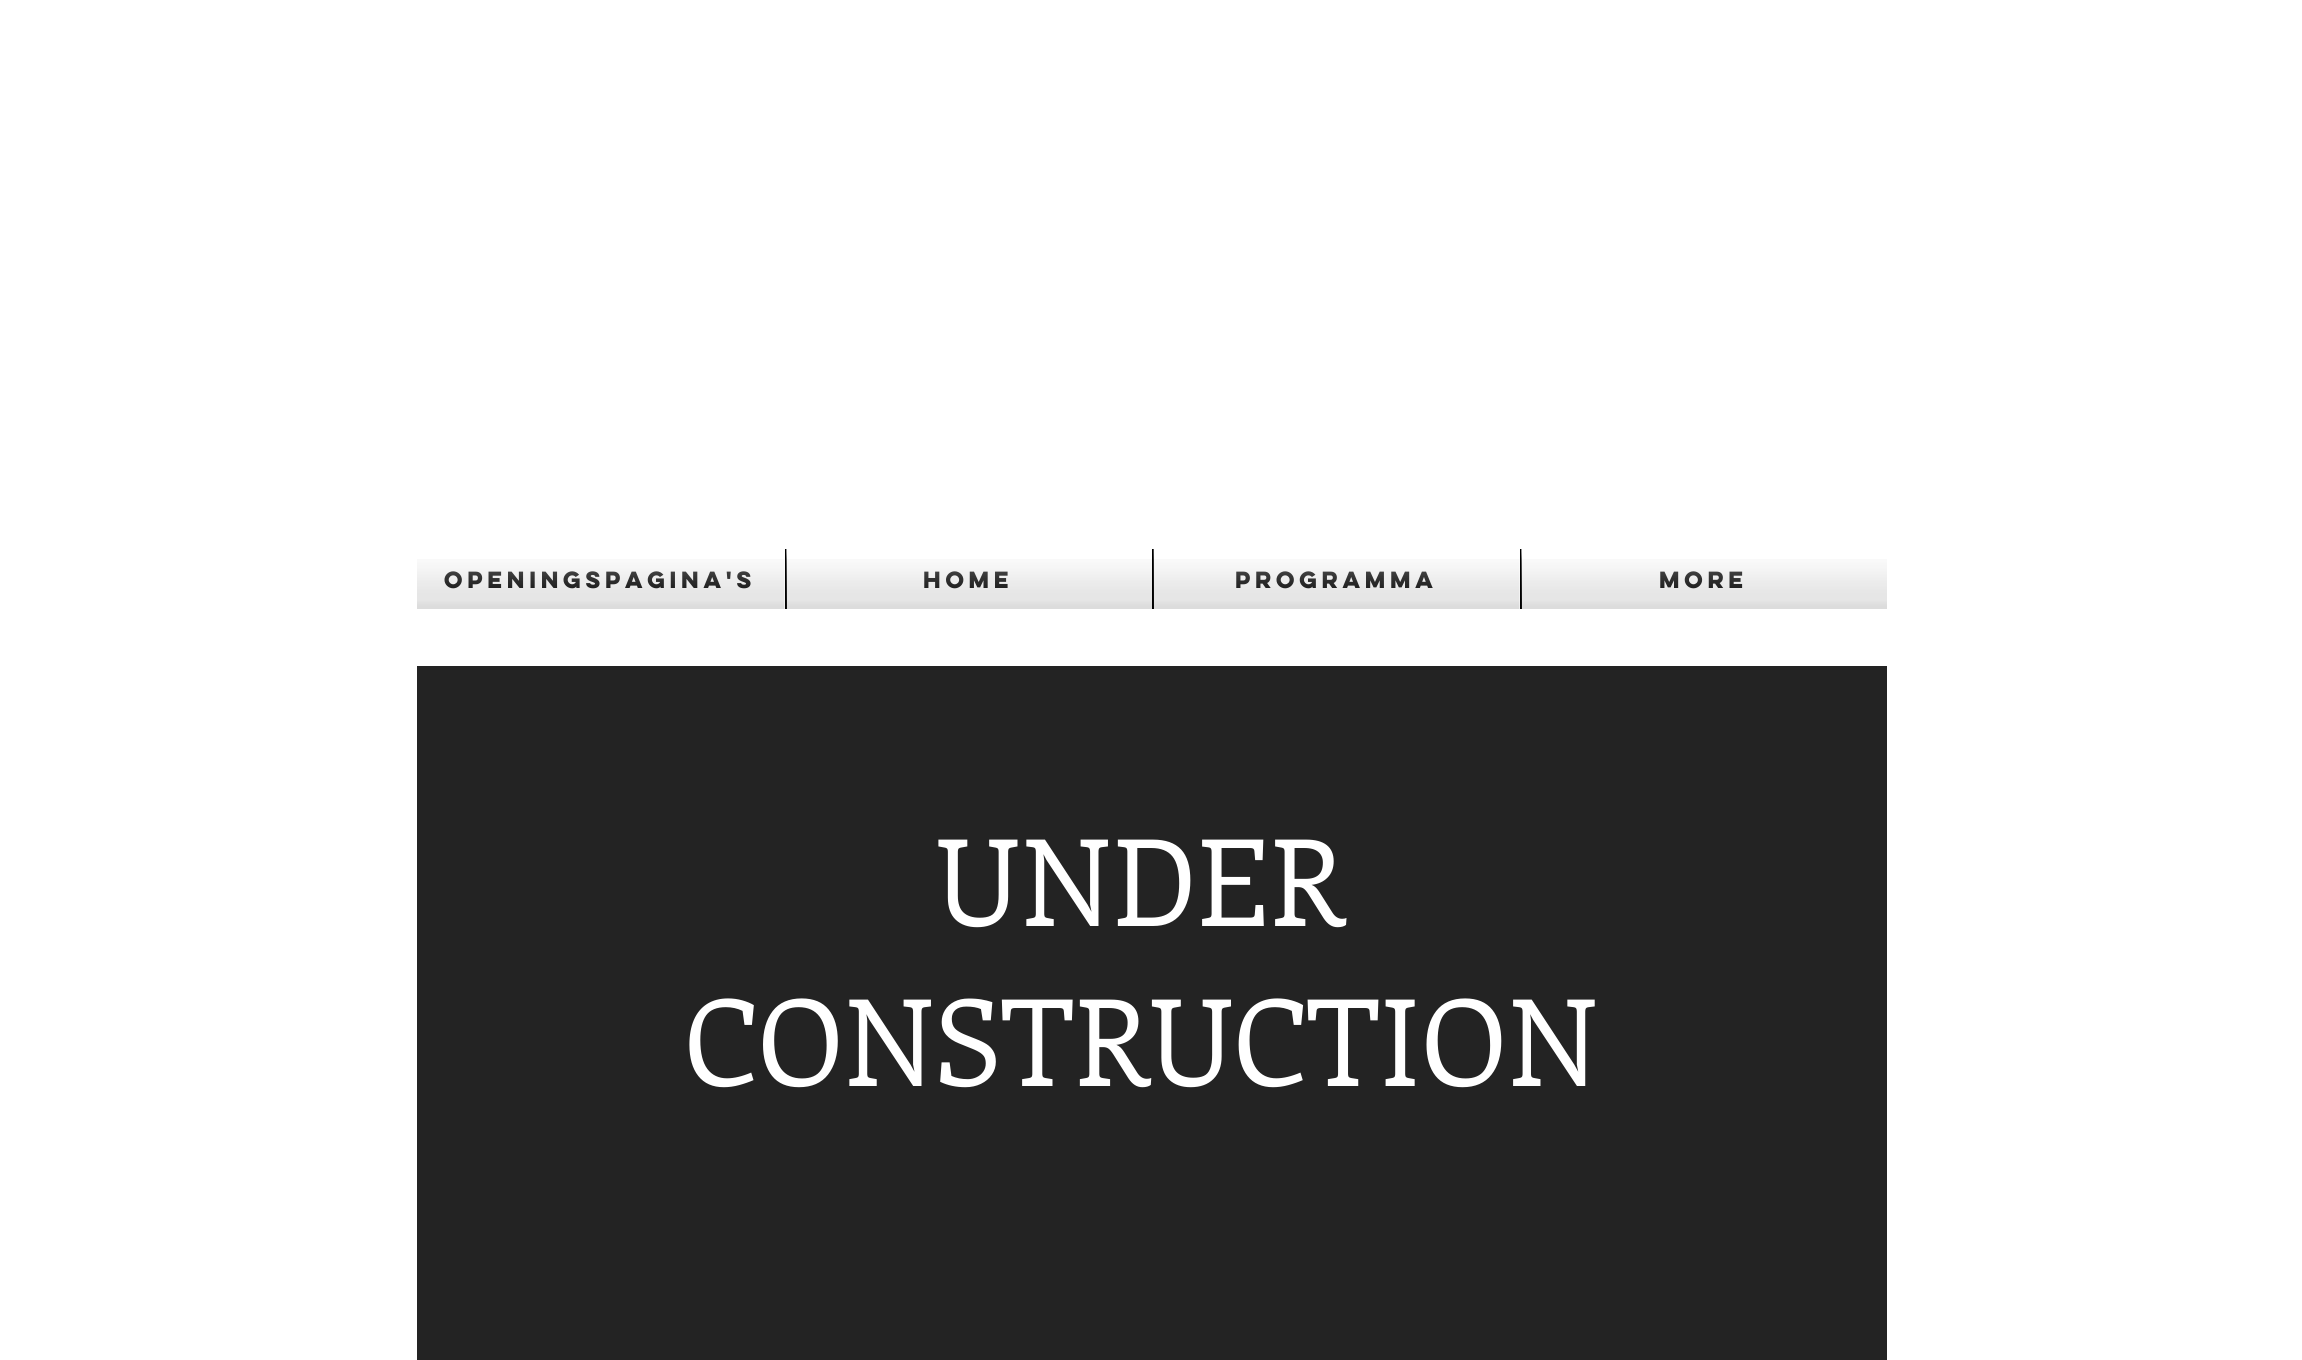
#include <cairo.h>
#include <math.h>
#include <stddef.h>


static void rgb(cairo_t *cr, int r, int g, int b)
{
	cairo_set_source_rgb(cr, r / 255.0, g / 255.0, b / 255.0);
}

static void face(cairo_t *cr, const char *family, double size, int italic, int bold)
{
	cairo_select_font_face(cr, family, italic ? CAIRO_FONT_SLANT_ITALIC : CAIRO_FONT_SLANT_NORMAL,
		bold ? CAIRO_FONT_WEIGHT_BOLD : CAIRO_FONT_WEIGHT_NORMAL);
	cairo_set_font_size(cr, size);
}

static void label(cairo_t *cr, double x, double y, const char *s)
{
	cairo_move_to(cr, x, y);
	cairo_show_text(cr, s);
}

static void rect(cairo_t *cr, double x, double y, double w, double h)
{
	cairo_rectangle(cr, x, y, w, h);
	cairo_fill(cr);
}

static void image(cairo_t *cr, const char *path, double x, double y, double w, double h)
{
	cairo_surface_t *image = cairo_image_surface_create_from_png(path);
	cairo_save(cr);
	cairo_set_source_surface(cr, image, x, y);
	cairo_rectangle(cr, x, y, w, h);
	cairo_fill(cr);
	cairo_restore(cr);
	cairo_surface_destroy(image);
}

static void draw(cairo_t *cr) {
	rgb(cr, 255, 255, 255);
	cairo_paint(cr);
	face(cr, "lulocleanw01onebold", 21, 0, 1);
	rgb(cr, 0, 0, 0);
	label(cr, 444, 588, "Openingspagina's");
	image(cr, "image0.png", 444, 571, 307, 18);
	image(cr, "image1.png", 417, 559, 368, 50);
	rect(cr, 785, 549, 2, 60);
	label(cr, 923, 588, "Home");
	image(cr, "image2.png", 786, 549, 222, 60);
	image(cr, "image3.png", 787, 559, 365, 50);
	rect(cr, 1152, 549, 2, 60);
	label(cr, 1235, 588, "Programma");
	image(cr, "image4.png", 1153, 549, 279, 60);
	image(cr, "image5.png", 1154, 559, 366, 50);
	rect(cr, 1520, 549, 2, 60);
	label(cr, 1659, 588, "More");
	image(cr, "image6.png", 1521, 549, 221, 60);
	image(cr, "image7.png", 1522, 559, 365, 50);
	rgb(cr, 35, 35, 35);
	rect(cr, 417, 666, 1470, 694);
	face(cr, "Enriqueta", 120, 0, 0);
	rgb(cr, 255, 255, 255);
	label(cr, 936, 926, "UNDER");
	label(cr, 684, 1086, "CONSTRUCTION");
}

int main(void) {
	cairo_surface_t *surface = cairo_image_surface_create(CAIRO_FORMAT_RGB24, 2302, 1360);
	cairo_t *cr = cairo_create(surface);
	cairo_font_options_t *options = cairo_font_options_create();
	cairo_font_options_set_hint_metrics(options, CAIRO_HINT_METRICS_OFF);
	cairo_font_options_set_hint_style(options, CAIRO_HINT_STYLE_NONE);
	cairo_set_font_options(cr, options);
	cairo_set_miter_limit(cr, 4);
	draw(cr);
	cairo_surface_write_to_png(surface, "render.png");
	cairo_font_options_destroy(options);
	cairo_destroy(cr);
	cairo_surface_destroy(surface);
	return 0;
}
